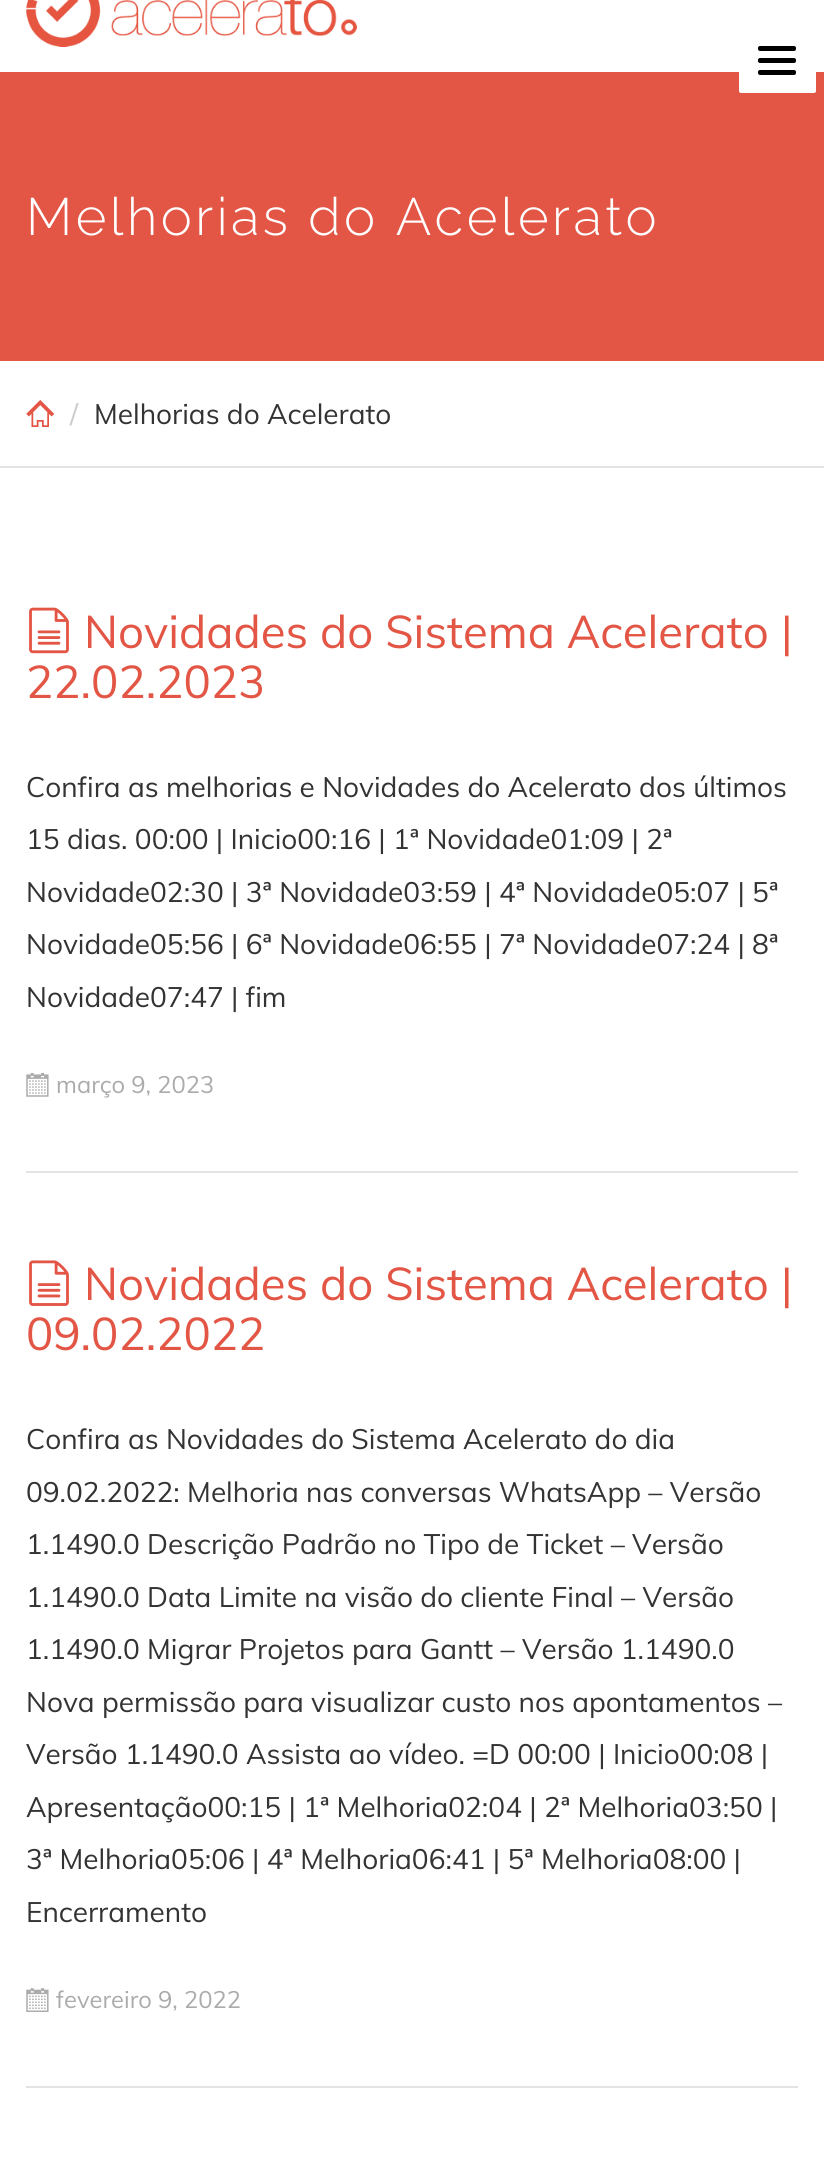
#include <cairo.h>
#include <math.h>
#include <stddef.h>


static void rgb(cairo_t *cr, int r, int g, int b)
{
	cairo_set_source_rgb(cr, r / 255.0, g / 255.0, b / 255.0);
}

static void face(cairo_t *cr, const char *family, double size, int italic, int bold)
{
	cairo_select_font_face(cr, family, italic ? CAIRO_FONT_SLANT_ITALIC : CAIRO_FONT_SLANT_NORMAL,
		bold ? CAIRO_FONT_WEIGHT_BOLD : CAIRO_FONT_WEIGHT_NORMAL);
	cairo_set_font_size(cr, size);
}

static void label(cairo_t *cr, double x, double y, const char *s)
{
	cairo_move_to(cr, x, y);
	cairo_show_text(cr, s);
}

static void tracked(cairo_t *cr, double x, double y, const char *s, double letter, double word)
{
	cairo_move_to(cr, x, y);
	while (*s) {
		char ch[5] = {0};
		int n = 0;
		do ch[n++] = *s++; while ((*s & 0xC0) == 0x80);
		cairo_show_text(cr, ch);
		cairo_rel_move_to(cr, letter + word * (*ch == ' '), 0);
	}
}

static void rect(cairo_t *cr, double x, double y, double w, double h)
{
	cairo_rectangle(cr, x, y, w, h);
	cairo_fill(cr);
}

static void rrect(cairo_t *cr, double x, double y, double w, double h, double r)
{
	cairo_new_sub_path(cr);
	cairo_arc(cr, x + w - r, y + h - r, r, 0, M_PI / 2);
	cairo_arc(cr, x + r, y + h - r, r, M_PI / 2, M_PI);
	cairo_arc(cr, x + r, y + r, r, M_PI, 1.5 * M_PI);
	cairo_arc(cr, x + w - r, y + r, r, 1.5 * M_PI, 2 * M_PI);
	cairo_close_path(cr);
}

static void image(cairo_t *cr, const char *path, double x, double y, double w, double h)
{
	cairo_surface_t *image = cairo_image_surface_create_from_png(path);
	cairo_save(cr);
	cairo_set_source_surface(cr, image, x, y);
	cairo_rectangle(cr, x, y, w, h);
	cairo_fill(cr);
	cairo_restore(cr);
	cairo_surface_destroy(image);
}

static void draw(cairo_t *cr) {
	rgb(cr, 255, 255, 255);
	cairo_paint(cr);
	image(cr, "image0.png", 26, 0, 331, 47);
	rgb(cr, 227, 86, 70);
	rect(cr, 0, 72, 824, 289);
	rgb(cr, 255, 255, 255);
	rrect(cr, 739, 28, 77, 65, 2);
	cairo_fill(cr);
	rgb(cr, 0, 0, 0);
	rrect(cr, 758, 46, 38, 5, 2);
	cairo_fill(cr);
	rrect(cr, 758, 58, 38, 5, 2);
	cairo_fill(cr);
	rrect(cr, 758, 70, 38, 5, 2);
	cairo_fill(cr);
	face(cr, "Raleway Thin", 52.5, 0, 0);
	rgb(cr, 255, 255, 255);
	tracked(cr, 26, 235, "Melhorias do Acelerato", 3.5, 0);
	rgb(cr, 228, 228, 228);
	rect(cr, 0, 466, 824, 2);
	image(cr, "image1.png", 26, 400, 29, 27);
	face(cr, "Muli", 28, 0, 0);
	rgb(cr, 204, 204, 204);
	label(cr, 70, 424, "/");
	rgb(cr, 51, 51, 51);
	label(cr, 94, 424, "Melhorias do Acelerato");
	rgb(cr, 228, 228, 228);
	rect(cr, 26, 1171, 772, 2);
	image(cr, "image2.png", 29, 607, 40, 47);
	face(cr, "Muli", 45.5, 0, 0);
	rgb(cr, 227, 86, 70);
	label(cr, 84, 648, "Novidades do Sistema Acelerato |");
	label(cr, 26, 698, "22.02.2023");
	face(cr, "Muli", 28, 0, 0);
	rgb(cr, 51, 51, 51);
	label(cr, 26, 797, "Confira as melhorias e Novidades do Acelerato dos últimos");
	label(cr, 26, 849, "15 dias. 00:00 | Inicio00:16 | 1ª Novidade01:09 | 2ª");
	label(cr, 26, 902, "Novidade02:30 | 3ª Novidade03:59 | 4ª Novidade05:07 | 5ª");
	label(cr, 26, 954, "Novidade05:56 | 6ª Novidade06:55 | 7ª Novidade07:24 | 8ª");
	label(cr, 26, 1007, "Novidade07:47 | fim");
	image(cr, "image3.png", 26, 1072, 23, 25);
	face(cr, "Muli", 23.75, 0, 0);
	rgb(cr, 171, 171, 171);
	label(cr, 56, 1093, "março 9, 2023");
	rgb(cr, 228, 228, 228);
	rect(cr, 26, 2086, 772, 2);
	image(cr, "image4.png", 29, 1260, 40, 46);
	face(cr, "Muli", 45.5, 0, 0);
	rgb(cr, 227, 86, 70);
	label(cr, 84, 1300, "Novidades do Sistema Acelerato |");
	label(cr, 26, 1350, "09.02.2022");
	face(cr, "Muli", 28, 0, 0);
	rgb(cr, 51, 51, 51);
	label(cr, 26, 1449, "Confira as Novidades do Sistema Acelerato do dia");
	label(cr, 26, 1502, "09.02.2022: Melhoria nas conversas WhatsApp – Versão");
	label(cr, 26, 1554, "1.1490.0 Descrição Padrão no Tipo de Ticket – Versão");
	label(cr, 26, 1607, "1.1490.0 Data Limite na visão do cliente Final – Versão");
	label(cr, 26, 1659, "1.1490.0 Migrar Projetos para Gantt – Versão 1.1490.0");
	label(cr, 26, 1712, "Nova permissão para visualizar custo nos apontamentos –");
	label(cr, 26, 1764, "Versão 1.1490.0 Assista ao vídeo. =D 00:00 | Inicio00:08 |");
	label(cr, 26, 1817, "Apresentação00:15 | 1ª Melhoria02:04 | 2ª Melhoria03:50 |");
	label(cr, 26, 1869, "3ª Melhoria05:06 | 4ª Melhoria06:41 | 5ª Melhoria08:00 |");
	label(cr, 26, 1922, "Encerramento");
	image(cr, "image5.png", 26, 1988, 23, 24);
	face(cr, "Muli", 23.75, 0, 0);
	rgb(cr, 171, 171, 171);
	label(cr, 56, 2008, "fevereiro 9, 2022");
}

int main(void) {
	cairo_surface_t *surface = cairo_image_surface_create(CAIRO_FORMAT_RGB24, 824, 2164);
	cairo_t *cr = cairo_create(surface);
	cairo_font_options_t *options = cairo_font_options_create();
	cairo_font_options_set_hint_metrics(options, CAIRO_HINT_METRICS_OFF);
	cairo_font_options_set_hint_style(options, CAIRO_HINT_STYLE_NONE);
	cairo_set_font_options(cr, options);
	cairo_set_miter_limit(cr, 4);
	draw(cr);
	cairo_surface_write_to_png(surface, "render.png");
	cairo_font_options_destroy(options);
	cairo_destroy(cr);
	cairo_surface_destroy(surface);
	return 0;
}
